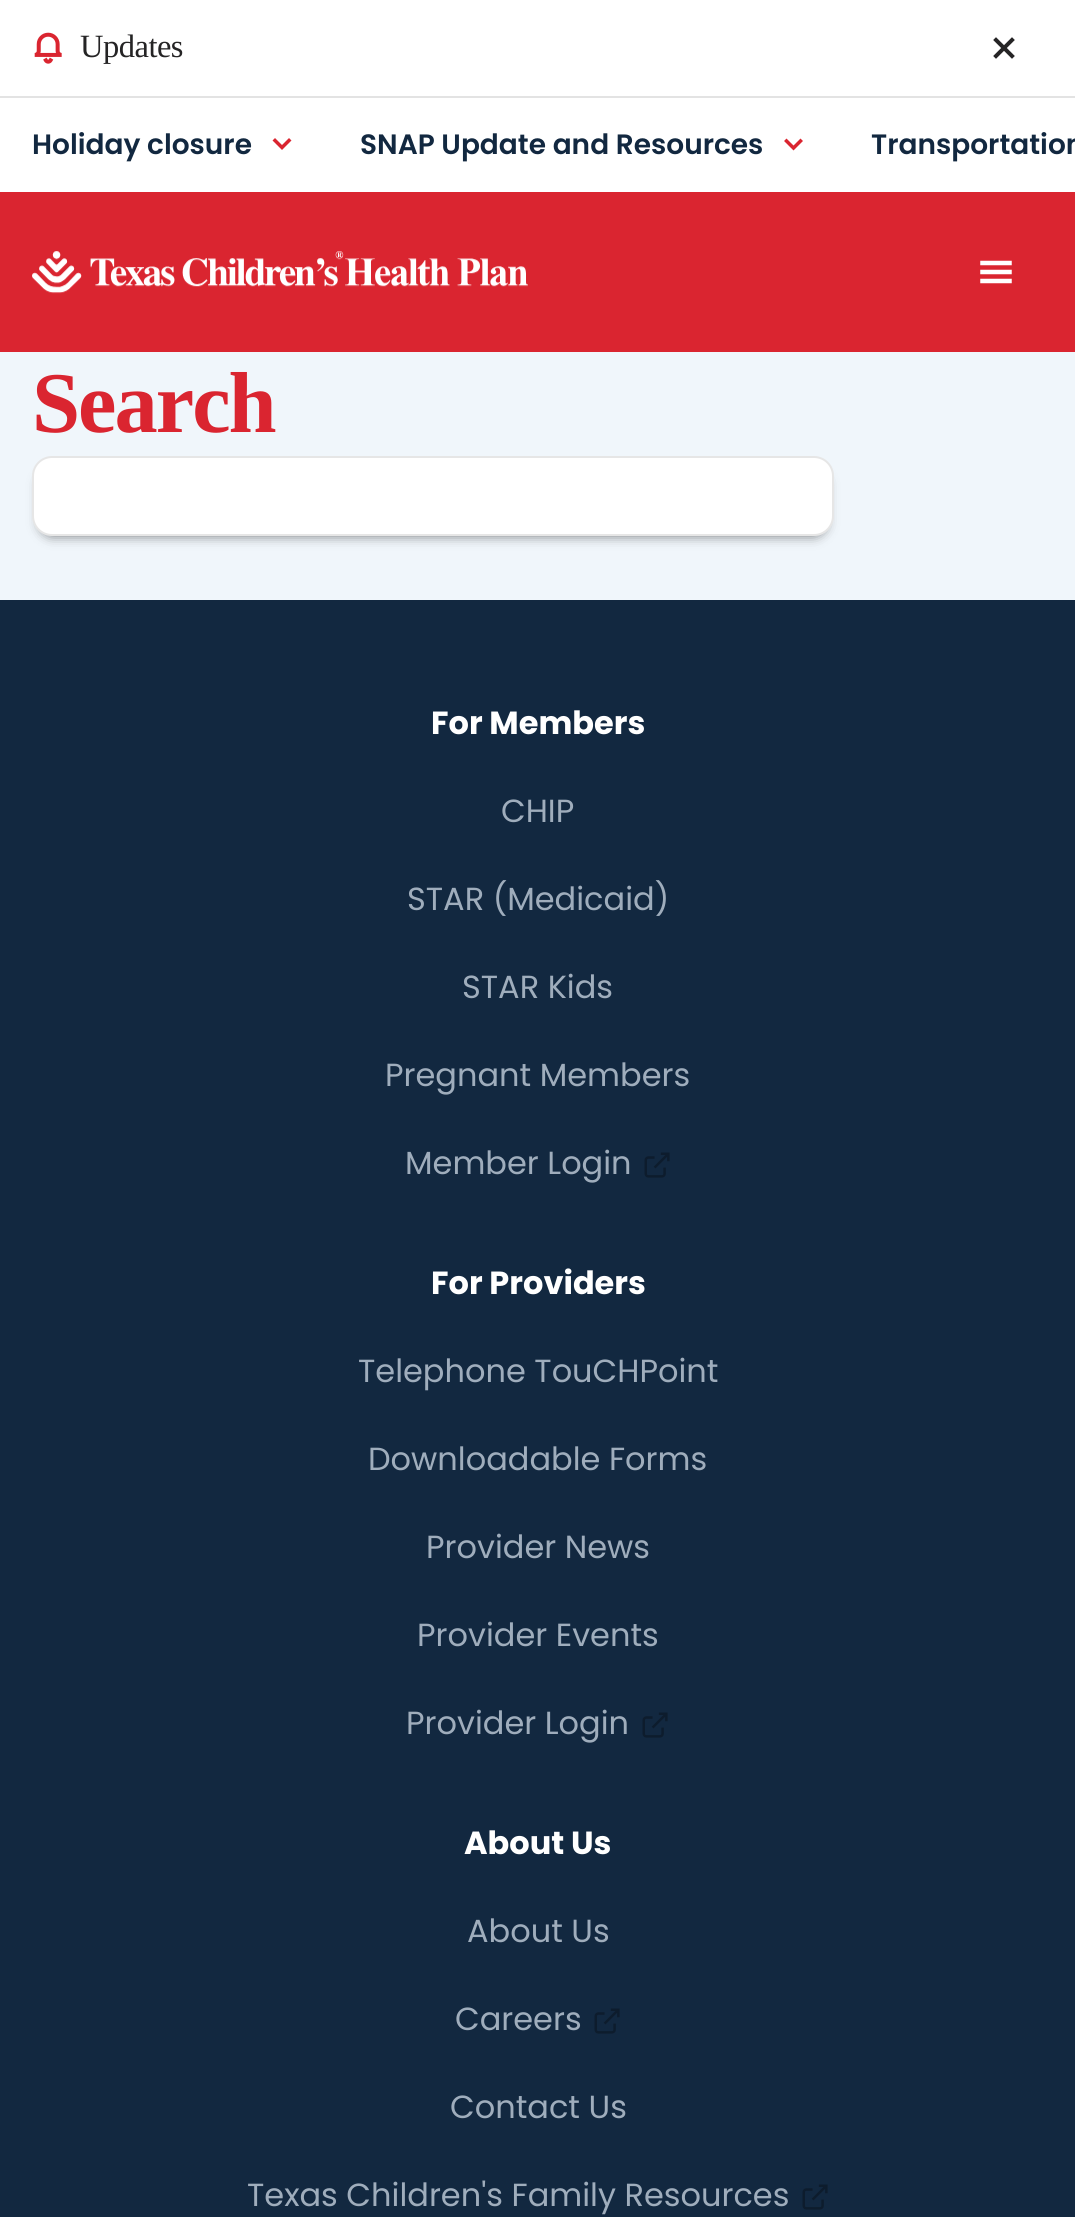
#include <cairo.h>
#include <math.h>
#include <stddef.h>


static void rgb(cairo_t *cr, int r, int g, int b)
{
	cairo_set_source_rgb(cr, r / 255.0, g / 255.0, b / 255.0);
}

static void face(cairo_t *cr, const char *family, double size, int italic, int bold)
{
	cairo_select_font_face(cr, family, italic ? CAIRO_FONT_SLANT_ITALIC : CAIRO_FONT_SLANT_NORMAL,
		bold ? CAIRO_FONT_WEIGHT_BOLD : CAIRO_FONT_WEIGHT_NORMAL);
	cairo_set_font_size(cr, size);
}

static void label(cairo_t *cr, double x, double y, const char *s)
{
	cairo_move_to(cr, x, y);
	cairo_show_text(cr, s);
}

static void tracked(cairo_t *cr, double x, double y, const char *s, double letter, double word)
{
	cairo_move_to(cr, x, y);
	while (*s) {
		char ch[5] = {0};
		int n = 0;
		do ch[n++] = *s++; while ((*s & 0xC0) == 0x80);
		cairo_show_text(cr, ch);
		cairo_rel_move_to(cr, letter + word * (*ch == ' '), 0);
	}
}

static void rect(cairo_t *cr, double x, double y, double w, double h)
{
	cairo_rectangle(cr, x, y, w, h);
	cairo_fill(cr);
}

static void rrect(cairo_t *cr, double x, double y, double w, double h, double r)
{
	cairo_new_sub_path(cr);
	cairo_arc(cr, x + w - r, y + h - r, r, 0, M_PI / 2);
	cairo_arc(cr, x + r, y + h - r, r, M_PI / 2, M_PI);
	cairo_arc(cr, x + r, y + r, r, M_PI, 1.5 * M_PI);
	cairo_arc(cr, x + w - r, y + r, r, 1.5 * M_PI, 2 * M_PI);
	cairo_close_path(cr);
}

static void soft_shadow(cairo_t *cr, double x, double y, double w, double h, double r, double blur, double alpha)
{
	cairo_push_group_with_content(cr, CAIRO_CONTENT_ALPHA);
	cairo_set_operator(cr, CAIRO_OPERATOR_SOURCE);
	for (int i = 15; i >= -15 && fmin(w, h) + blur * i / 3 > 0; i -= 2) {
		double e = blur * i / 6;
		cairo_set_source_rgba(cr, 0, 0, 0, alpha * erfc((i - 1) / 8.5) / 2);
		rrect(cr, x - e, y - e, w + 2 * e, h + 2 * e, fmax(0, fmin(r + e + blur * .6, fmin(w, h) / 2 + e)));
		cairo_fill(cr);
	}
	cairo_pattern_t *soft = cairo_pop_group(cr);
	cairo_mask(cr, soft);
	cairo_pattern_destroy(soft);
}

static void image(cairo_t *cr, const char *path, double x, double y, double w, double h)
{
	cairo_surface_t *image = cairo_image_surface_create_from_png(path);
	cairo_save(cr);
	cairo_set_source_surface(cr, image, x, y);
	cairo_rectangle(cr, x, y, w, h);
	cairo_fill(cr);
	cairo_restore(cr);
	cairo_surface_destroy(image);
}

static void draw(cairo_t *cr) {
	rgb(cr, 240, 246, 251);
	cairo_paint(cr);
	rgb(cr, 255, 255, 255);
	rect(cr, 0, 0, 1075, 192);
	rgb(cr, 227, 227, 227);
	rect(cr, 0, 96, 1075, 2);
	image(cr, "image0.png", 34, 32, 28, 32);
	face(cr, "Liberation Serif", 32.5, 0, 0);
	rgb(cr, 37, 36, 37);
	tracked(cr, 80, 57, "Updates", -0.5, 0);
	cairo_new_path(cr);
	cairo_move_to(cr, 1012, 40);
	cairo_line_to(cr, 996, 56);
	cairo_move_to(cr, 996, 40);
	cairo_line_to(cr, 1012, 56);
	cairo_set_line_width(cr, 4);
	cairo_set_line_cap(cr, CAIRO_LINE_CAP_SQUARE);
	cairo_stroke(cr);
	face(cr, "Poppins SemiBold", 28, 0, 0);
	rgb(cr, 18, 40, 64);
	label(cr, 32, 154, "Holiday closure");
	cairo_new_path(cr);
	cairo_move_to(cr, 275, 140.5);
	cairo_line_to(cr, 282, 147.5);
	cairo_line_to(cr, 289, 140.5);
	rgb(cr, 218, 37, 48);
	cairo_set_line_width(cr, 3.5);
	cairo_stroke(cr);
	rgb(cr, 18, 40, 64);
	label(cr, 360, 154, "SNAP Update and Resources");
	cairo_new_path(cr);
	cairo_move_to(cr, 786.5, 141);
	cairo_line_to(cr, 793.5, 148);
	cairo_line_to(cr, 800.5, 141);
	rgb(cr, 218, 37, 48);
	cairo_stroke(cr);
	rgb(cr, 18, 40, 64);
	label(cr, 871, 154, "Transportation");
	rgb(cr, 218, 37, 48);
	rect(cr, 0, 192, 1075, 160);
	image(cr, "image1.png", 32, 251, 496, 43);
	cairo_new_path(cr);
	cairo_move_to(cr, 982.5, 272);
	cairo_line_to(cr, 1009.5, 272);
	cairo_move_to(cr, 982.5, 263);
	cairo_line_to(cr, 1009.5, 263);
	cairo_move_to(cr, 982.5, 281);
	cairo_line_to(cr, 1009.5, 281);
	rgb(cr, 255, 255, 255);
	cairo_set_line_width(cr, 4.5);
	cairo_stroke(cr);
	face(cr, "Liberation Serif", 86.5, 0, 1);
	rgb(cr, 218, 37, 48);
	tracked(cr, 32, 432, "Search", -2, 0);
	rgb(cr, 0, 0, 0);
	soft_shadow(cr, 40, 472, 786, 64, 12, 6, 0.5);
	rgb(cr, 255, 255, 255);
	rrect(cr, 32, 456, 802, 80, 20);
	cairo_fill(cr);
	rrect(cr, 33, 457, 800, 78, 19);
	cairo_set_source_rgba(cr, 0, 0, 0, 0.1);
	cairo_set_line_width(cr, 2);
	cairo_set_line_cap(cr, CAIRO_LINE_CAP_BUTT);
	cairo_stroke(cr);
	rgb(cr, 18, 40, 64);
	rect(cr, 0, 600, 1075, 1617);
	face(cr, "Poppins", 32, 0, 1);
	rgb(cr, 255, 255, 255);
	label(cr, 431, 734, "For Members");
	face(cr, "Poppins", 32, 0, 0);
	rgb(cr, 159, 173, 188);
	label(cr, 501, 822, "CHIP");
	label(cr, 407, 910, "STAR (Medicaid)");
	label(cr, 462, 998, "STAR Kids");
	label(cr, 385, 1086, "Pregnant Members");
	label(cr, 405, 1174, "Member Login");
	image(cr, "image2.png", 644, 1152, 26, 26);
	face(cr, "Poppins", 32, 0, 1);
	rgb(cr, 255, 255, 255);
	label(cr, 431, 1294, "For Providers");
	face(cr, "Poppins", 32, 0, 0);
	rgb(cr, 159, 173, 188);
	label(cr, 358, 1382, "Telephone TouCHPoint");
	label(cr, 368, 1470, "Downloadable Forms");
	label(cr, 426, 1558, "Provider News");
	label(cr, 417, 1646, "Provider Events");
	label(cr, 406, 1734, "Provider Login");
	image(cr, "image2.png", 642, 1712, 26, 26);
	face(cr, "Poppins", 32, 0, 1);
	rgb(cr, 255, 255, 255);
	label(cr, 464, 1854, "About Us");
	face(cr, "Poppins", 32, 0, 0);
	rgb(cr, 159, 173, 188);
	label(cr, 467, 1942, "About Us");
	label(cr, 455, 2030, "Careers");
	image(cr, "image2.png", 594, 2008, 26, 26);
	label(cr, 450, 2118, "Contact Us");
	label(cr, 247, 2206, "Texas Children's Family Resources");
	image(cr, "image2.png", 802, 2184, 26, 26);
}

int main(void) {
	cairo_surface_t *surface = cairo_image_surface_create(CAIRO_FORMAT_RGB24, 1075, 2217);
	cairo_t *cr = cairo_create(surface);
	cairo_font_options_t *options = cairo_font_options_create();
	cairo_font_options_set_hint_metrics(options, CAIRO_HINT_METRICS_OFF);
	cairo_font_options_set_hint_style(options, CAIRO_HINT_STYLE_NONE);
	cairo_set_font_options(cr, options);
	cairo_set_miter_limit(cr, 4);
	draw(cr);
	cairo_surface_write_to_png(surface, "render.png");
	cairo_font_options_destroy(options);
	cairo_destroy(cr);
	cairo_surface_destroy(surface);
	return 0;
}
